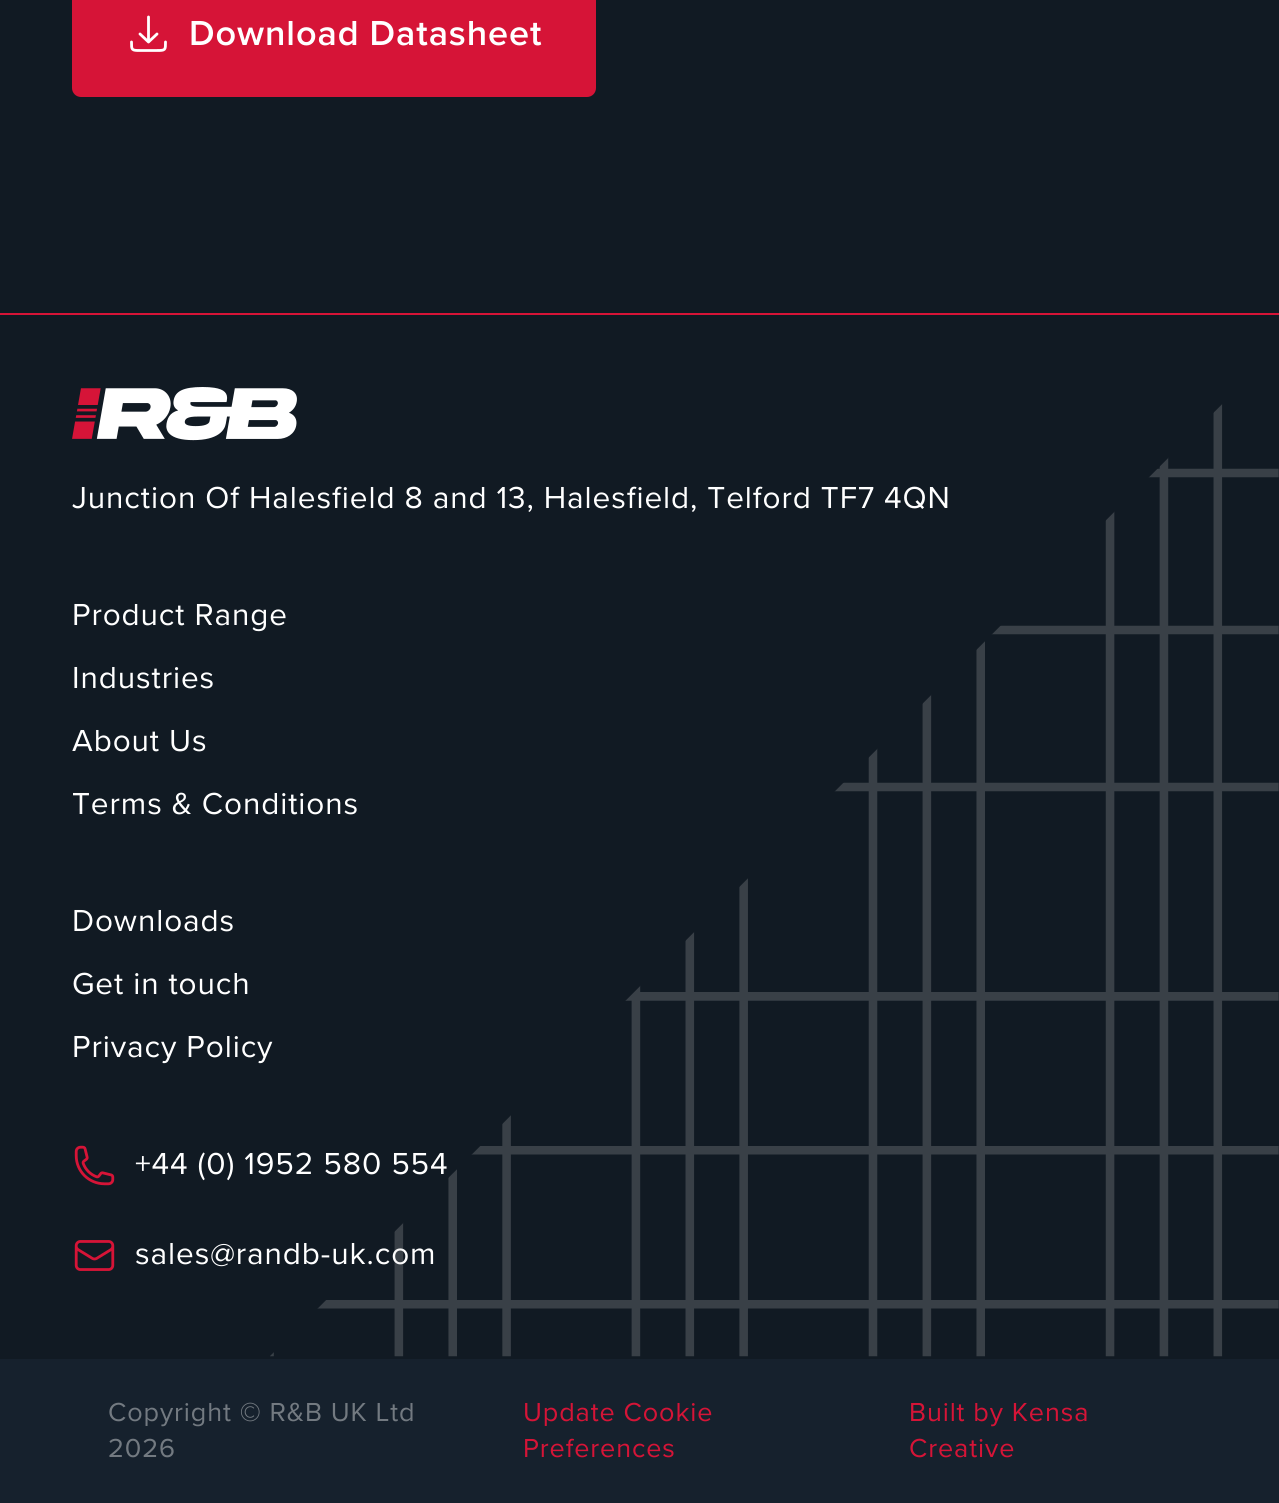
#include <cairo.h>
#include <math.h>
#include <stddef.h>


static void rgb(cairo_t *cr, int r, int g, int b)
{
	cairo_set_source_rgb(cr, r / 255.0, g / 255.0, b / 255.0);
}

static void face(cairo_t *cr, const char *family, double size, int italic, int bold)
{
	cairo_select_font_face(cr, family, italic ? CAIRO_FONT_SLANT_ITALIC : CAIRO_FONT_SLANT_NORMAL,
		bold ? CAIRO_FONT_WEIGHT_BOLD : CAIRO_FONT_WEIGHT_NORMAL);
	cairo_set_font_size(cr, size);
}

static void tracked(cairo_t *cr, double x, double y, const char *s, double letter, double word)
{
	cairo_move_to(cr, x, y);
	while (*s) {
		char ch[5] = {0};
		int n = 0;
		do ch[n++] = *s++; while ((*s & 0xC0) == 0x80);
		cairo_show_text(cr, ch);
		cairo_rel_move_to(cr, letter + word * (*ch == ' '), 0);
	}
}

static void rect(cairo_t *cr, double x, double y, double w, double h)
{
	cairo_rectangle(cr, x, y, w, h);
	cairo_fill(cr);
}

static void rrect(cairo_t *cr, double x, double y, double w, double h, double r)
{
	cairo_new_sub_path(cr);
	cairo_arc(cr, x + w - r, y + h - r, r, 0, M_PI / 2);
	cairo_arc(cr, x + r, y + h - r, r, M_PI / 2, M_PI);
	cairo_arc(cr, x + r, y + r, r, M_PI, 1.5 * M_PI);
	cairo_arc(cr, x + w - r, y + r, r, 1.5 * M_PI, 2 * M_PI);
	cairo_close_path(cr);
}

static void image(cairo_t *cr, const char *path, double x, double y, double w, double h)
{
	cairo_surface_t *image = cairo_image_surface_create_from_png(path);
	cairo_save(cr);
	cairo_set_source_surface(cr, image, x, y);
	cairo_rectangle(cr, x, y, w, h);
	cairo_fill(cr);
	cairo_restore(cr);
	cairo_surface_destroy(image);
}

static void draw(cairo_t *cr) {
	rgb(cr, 17, 26, 35);
	cairo_paint(cr);
	rgb(cr, 214, 20, 55);
	rrect(cr, 72, -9, 524, 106, 9);
	cairo_fill(cr);
	cairo_new_path(cr);
	cairo_move_to(cr, 131.5, 42);
	cairo_curve_to(cr, 131.5, 50, 131.5, 50.5, 140, 50.5);
	cairo_line_to(cr, 157, 50.5);
	cairo_curve_to(cr, 165.5, 50.5, 165.5, 50, 165.5, 42);
	cairo_move_to(cr, 157, 34);
	cairo_line_to(cr, 148.5, 42);
	cairo_move_to(cr, 148.5, 42);
	cairo_line_to(cr, 140, 34);
	cairo_move_to(cr, 148.5, 42);
	cairo_line_to(cr, 148.5, 17);
	rgb(cr, 255, 255, 255);
	cairo_set_line_width(cr, 2.8);
	cairo_set_line_cap(cr, CAIRO_LINE_CAP_ROUND);
	cairo_set_line_join(cr, CAIRO_LINE_JOIN_ROUND);
	cairo_stroke(cr);
	face(cr, "Proxima Nova SemiBold", 36, 0, 0);
	tracked(cr, 189, 45, "Download Datasheet", 0.9, 0);
	rgb(cr, 214, 20, 55);
	rect(cr, 0, 313, 1279, 2);
	image(cr, "image1.png", 72, 387, 225, 54);
	face(cr, "Proxima Nova", 31.5, 0, 0);
	rgb(cr, 255, 255, 255);
	tracked(cr, 72, 508, "Junction Of Halesfield 8 and 13, Halesfield, Telford TF7 4QN", 0.9, 0);
	tracked(cr, 72, 625, "Product Range", 0.9, 0);
	tracked(cr, 72, 814, "Terms & Conditions", 0.9, 0);
	tracked(cr, 72, 1057, "Privacy Policy", 0.9, 0);
	tracked(cr, 135, 1174, "+44 (0) 1952 580 554", 0.9, 0);
	tracked(cr, 135, 1264, "sales@randb-uk.com", 0.9, 0);
	image(cr, "image0.png", 270, 404, 1009, 953);
	tracked(cr, 72, 688, "Industries", 0.9, 0);
	tracked(cr, 72, 751, "About Us", 0.9, 0);
	tracked(cr, 72, 931, "Downloads", 0.9, 0);
	tracked(cr, 72, 994, "Get in touch", 0.9, 0);
	image(cr, "image2.png", 74, 1145, 41, 41);
	image(cr, "image3.png", 74, 1240, 41, 31);
	rgb(cr, 22, 33, 45);
	rect(cr, 0, 1359, 1279, 144);
	face(cr, "Proxima Nova", 27, 0, 0);
	rgb(cr, 115, 122, 129);
	tracked(cr, 108, 1421, "Copyright © R&B UK Ltd", 0.9, 0);
	tracked(cr, 108, 1457, "2026", 0.9, 0);
	rgb(cr, 214, 20, 55);
	tracked(cr, 523, 1421, "Update Cookie", 0.9, 0);
	tracked(cr, 523, 1457, "Preferences", 0.9, 0);
	tracked(cr, 909, 1421, "Built by Kensa", 0.9, 0);
	tracked(cr, 909, 1457, "Creative", 0.9, 0);
}

int main(void) {
	cairo_surface_t *surface = cairo_image_surface_create(CAIRO_FORMAT_RGB24, 1279, 1503);
	cairo_t *cr = cairo_create(surface);
	cairo_font_options_t *options = cairo_font_options_create();
	cairo_font_options_set_hint_metrics(options, CAIRO_HINT_METRICS_OFF);
	cairo_font_options_set_hint_style(options, CAIRO_HINT_STYLE_NONE);
	cairo_set_font_options(cr, options);
	cairo_set_miter_limit(cr, 4);
	draw(cr);
	cairo_surface_write_to_png(surface, "render.png");
	cairo_font_options_destroy(options);
	cairo_destroy(cr);
	cairo_surface_destroy(surface);
	return 0;
}
